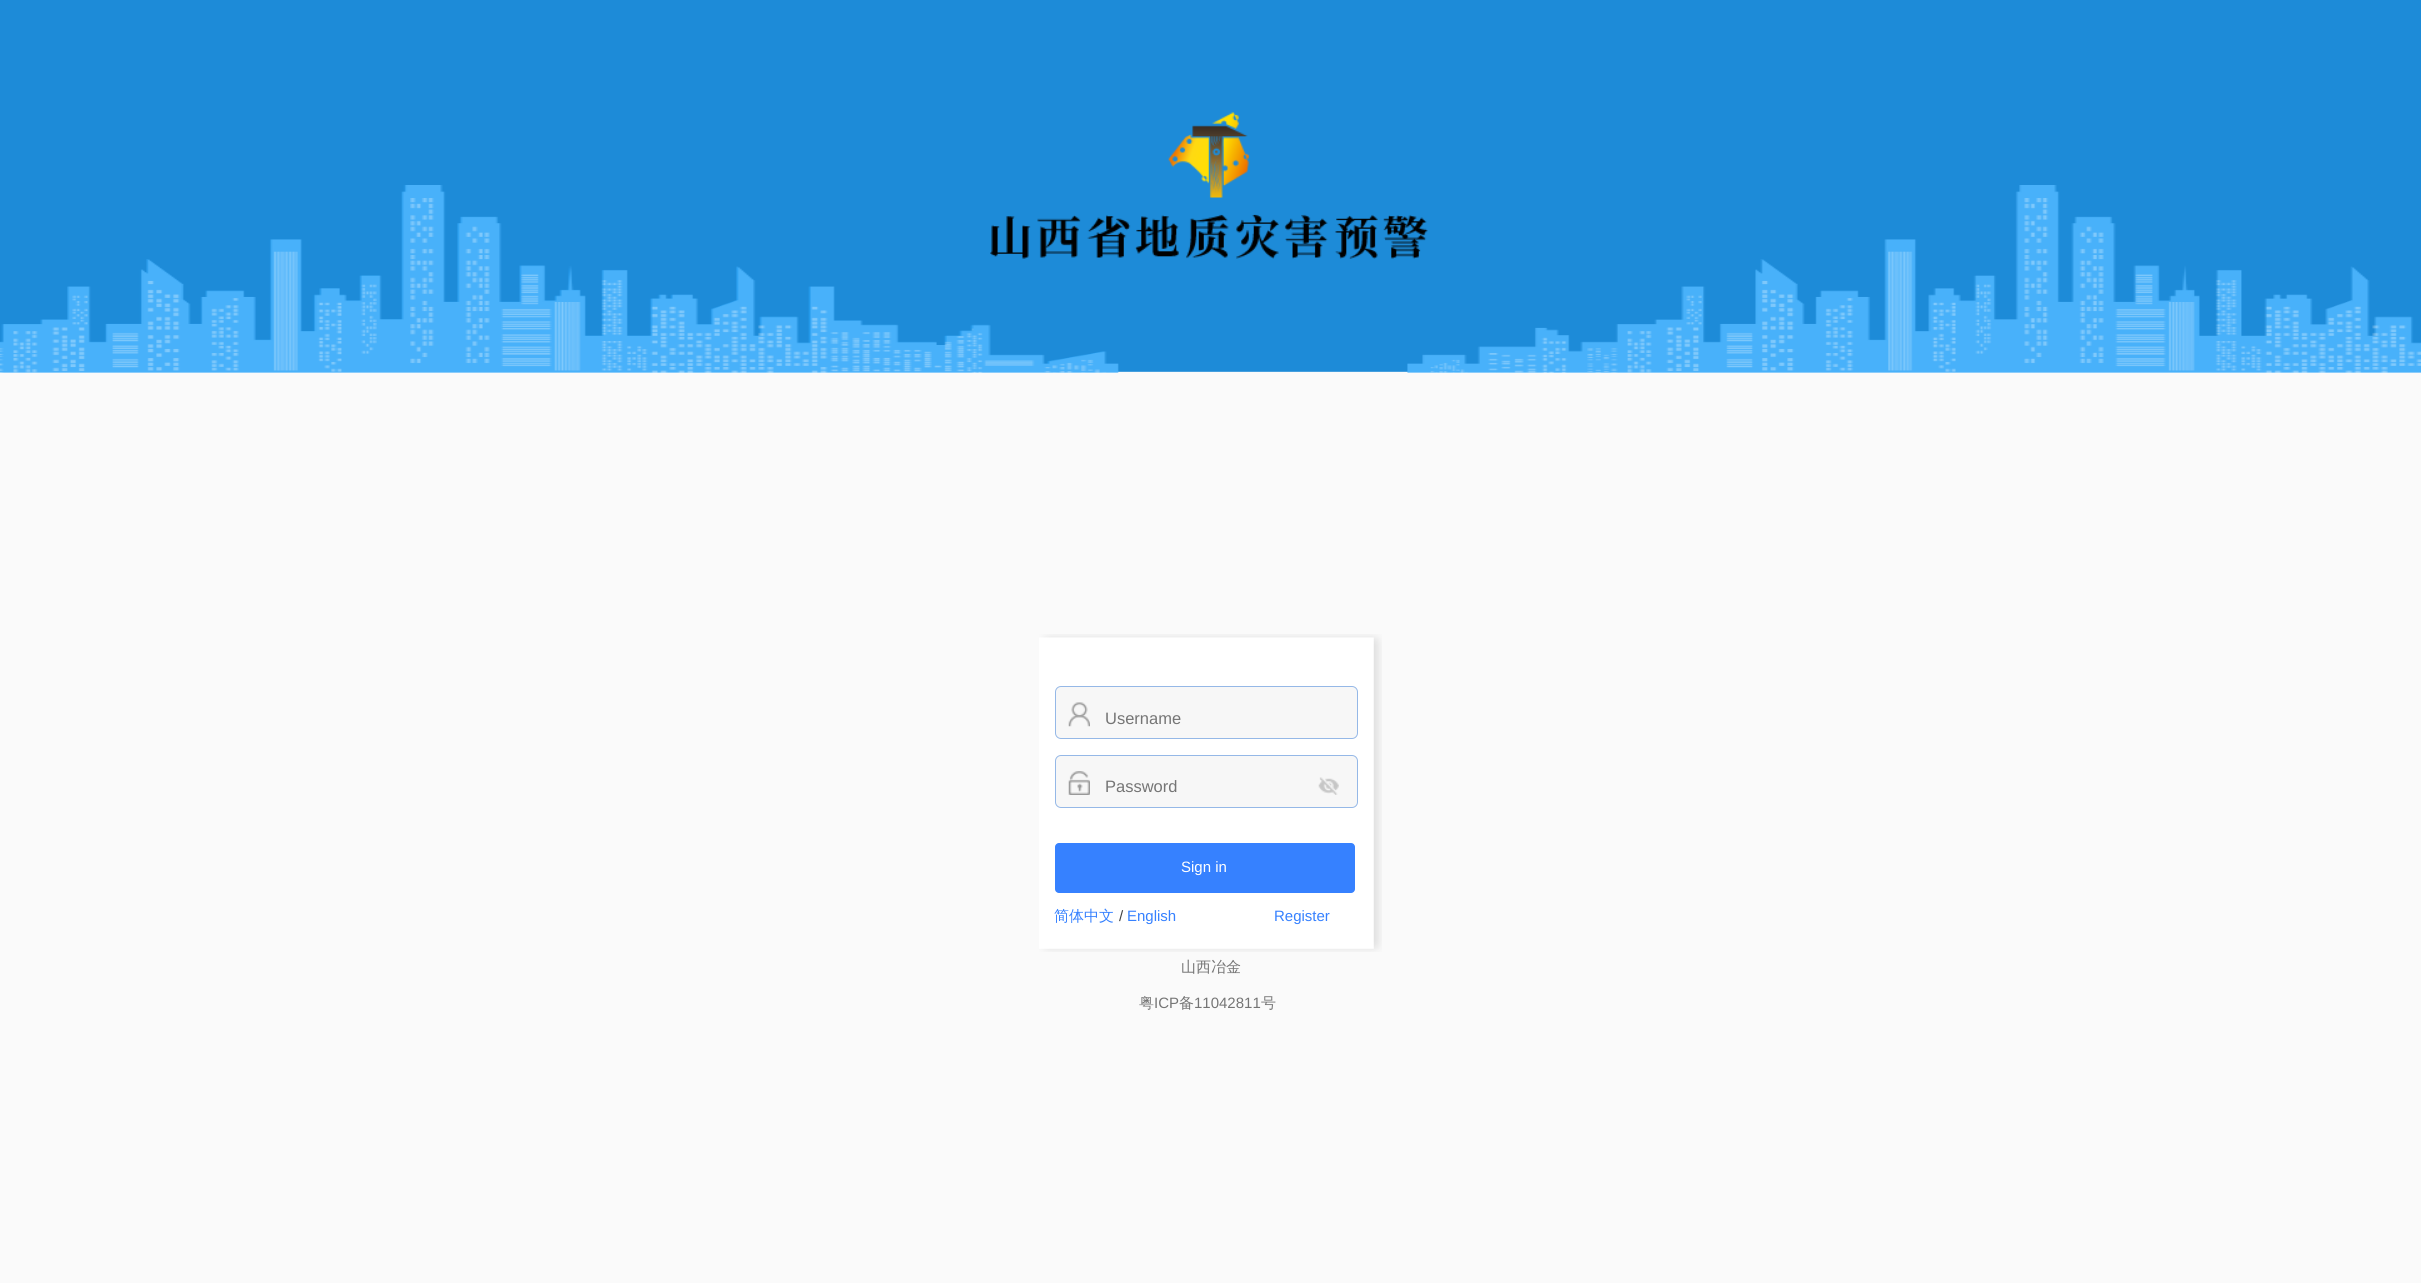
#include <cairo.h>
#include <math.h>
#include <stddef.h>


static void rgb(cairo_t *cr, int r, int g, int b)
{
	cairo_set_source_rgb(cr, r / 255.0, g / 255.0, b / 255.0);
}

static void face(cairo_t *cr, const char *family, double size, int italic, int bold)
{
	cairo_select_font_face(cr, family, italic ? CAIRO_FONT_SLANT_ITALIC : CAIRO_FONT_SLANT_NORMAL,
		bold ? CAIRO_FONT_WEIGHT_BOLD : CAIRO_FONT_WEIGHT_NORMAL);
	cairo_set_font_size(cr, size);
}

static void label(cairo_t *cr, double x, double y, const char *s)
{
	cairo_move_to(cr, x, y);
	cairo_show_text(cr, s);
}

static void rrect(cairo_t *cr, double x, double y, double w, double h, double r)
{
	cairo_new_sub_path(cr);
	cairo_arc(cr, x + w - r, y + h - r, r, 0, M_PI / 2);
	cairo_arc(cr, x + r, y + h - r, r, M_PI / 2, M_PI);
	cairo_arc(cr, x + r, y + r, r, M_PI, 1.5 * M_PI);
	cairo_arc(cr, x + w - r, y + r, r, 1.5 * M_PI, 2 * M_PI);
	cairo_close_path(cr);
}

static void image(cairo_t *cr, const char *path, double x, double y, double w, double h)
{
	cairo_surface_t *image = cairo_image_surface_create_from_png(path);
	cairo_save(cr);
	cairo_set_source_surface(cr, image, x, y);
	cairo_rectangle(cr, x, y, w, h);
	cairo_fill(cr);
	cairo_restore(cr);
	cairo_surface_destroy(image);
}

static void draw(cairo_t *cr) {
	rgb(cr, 250, 250, 250);
	cairo_paint(cr);
	image(cr, "image0.png", 0, 0, 2421, 373);
	image(cr, "image1.png", 990, 112, 438, 147);
	image(cr, "image2.png", 1039, 634, 343, 318);
	rgb(cr, 247, 247, 247);
	rrect(cr, 1055.5, 686.5, 302, 52, 5.5);
	cairo_fill_preserve(cr);
	rgb(cr, 149, 184, 231);
	cairo_set_line_width(cr, 1);
	cairo_stroke(cr);
	image(cr, "image3.png", 1068, 702, 22, 25);
	face(cr, "Liberation Sans", 16.5, 0, 0);
	rgb(cr, 117, 117, 117);
	label(cr, 1105, 724, "Username");
	rgb(cr, 247, 247, 247);
	rrect(cr, 1055.5, 755.5, 302, 52, 5.5);
	cairo_fill_preserve(cr);
	rgb(cr, 149, 184, 231);
	cairo_stroke(cr);
	image(cr, "image4.png", 1068, 771, 22, 24);
	rgb(cr, 117, 117, 117);
	label(cr, 1105, 792, "Password");
	image(cr, "image5.png", 1318, 777, 21, 18);
	rgb(cr, 54, 129, 255);
	rrect(cr, 1055, 843, 300, 50, 4);
	cairo_fill(cr);
	face(cr, "Liberation Sans", 15, 0, 0);
	rgb(cr, 255, 255, 255);
	label(cr, 1181, 872, "Sign in");
	face(cr, "WenQuanYi Zen Hei Medium", 15, 0, 0);
	rgb(cr, 54, 129, 255);
	label(cr, 1054, 921, "简体中文");
	face(cr, "Liberation Sans", 15, 0, 0);
	rgb(cr, 64, 64, 64);
	label(cr, 1119, 921, "/");
	rgb(cr, 54, 129, 255);
	label(cr, 1127, 921, "English");
	label(cr, 1274, 921, "Register");
	face(cr, "WenQuanYi Zen Hei Medium", 15, 0, 0);
	rgb(cr, 117, 117, 117);
	label(cr, 1181, 972, "山西冶金");
	label(cr, 1139, 1008, "粤");
	face(cr, "Liberation Sans", 15, 0, 0);
	label(cr, 1154, 1008, "ICP");
	face(cr, "WenQuanYi Zen Hei Medium", 15, 0, 0);
	label(cr, 1179, 1008, "备");
	face(cr, "Liberation Sans", 15, 0, 0);
	label(cr, 1194, 1008, "11042811");
	face(cr, "WenQuanYi Zen Hei Medium", 15, 0, 0);
	label(cr, 1261, 1008, "号");
}

int main(void) {
	cairo_surface_t *surface = cairo_image_surface_create(CAIRO_FORMAT_RGB24, 2421, 1283);
	cairo_t *cr = cairo_create(surface);
	cairo_font_options_t *options = cairo_font_options_create();
	cairo_font_options_set_hint_metrics(options, CAIRO_HINT_METRICS_OFF);
	cairo_font_options_set_hint_style(options, CAIRO_HINT_STYLE_NONE);
	cairo_set_font_options(cr, options);
	cairo_set_miter_limit(cr, 4);
	draw(cr);
	cairo_surface_write_to_png(surface, "render.png");
	cairo_font_options_destroy(options);
	cairo_destroy(cr);
	cairo_surface_destroy(surface);
	return 0;
}
